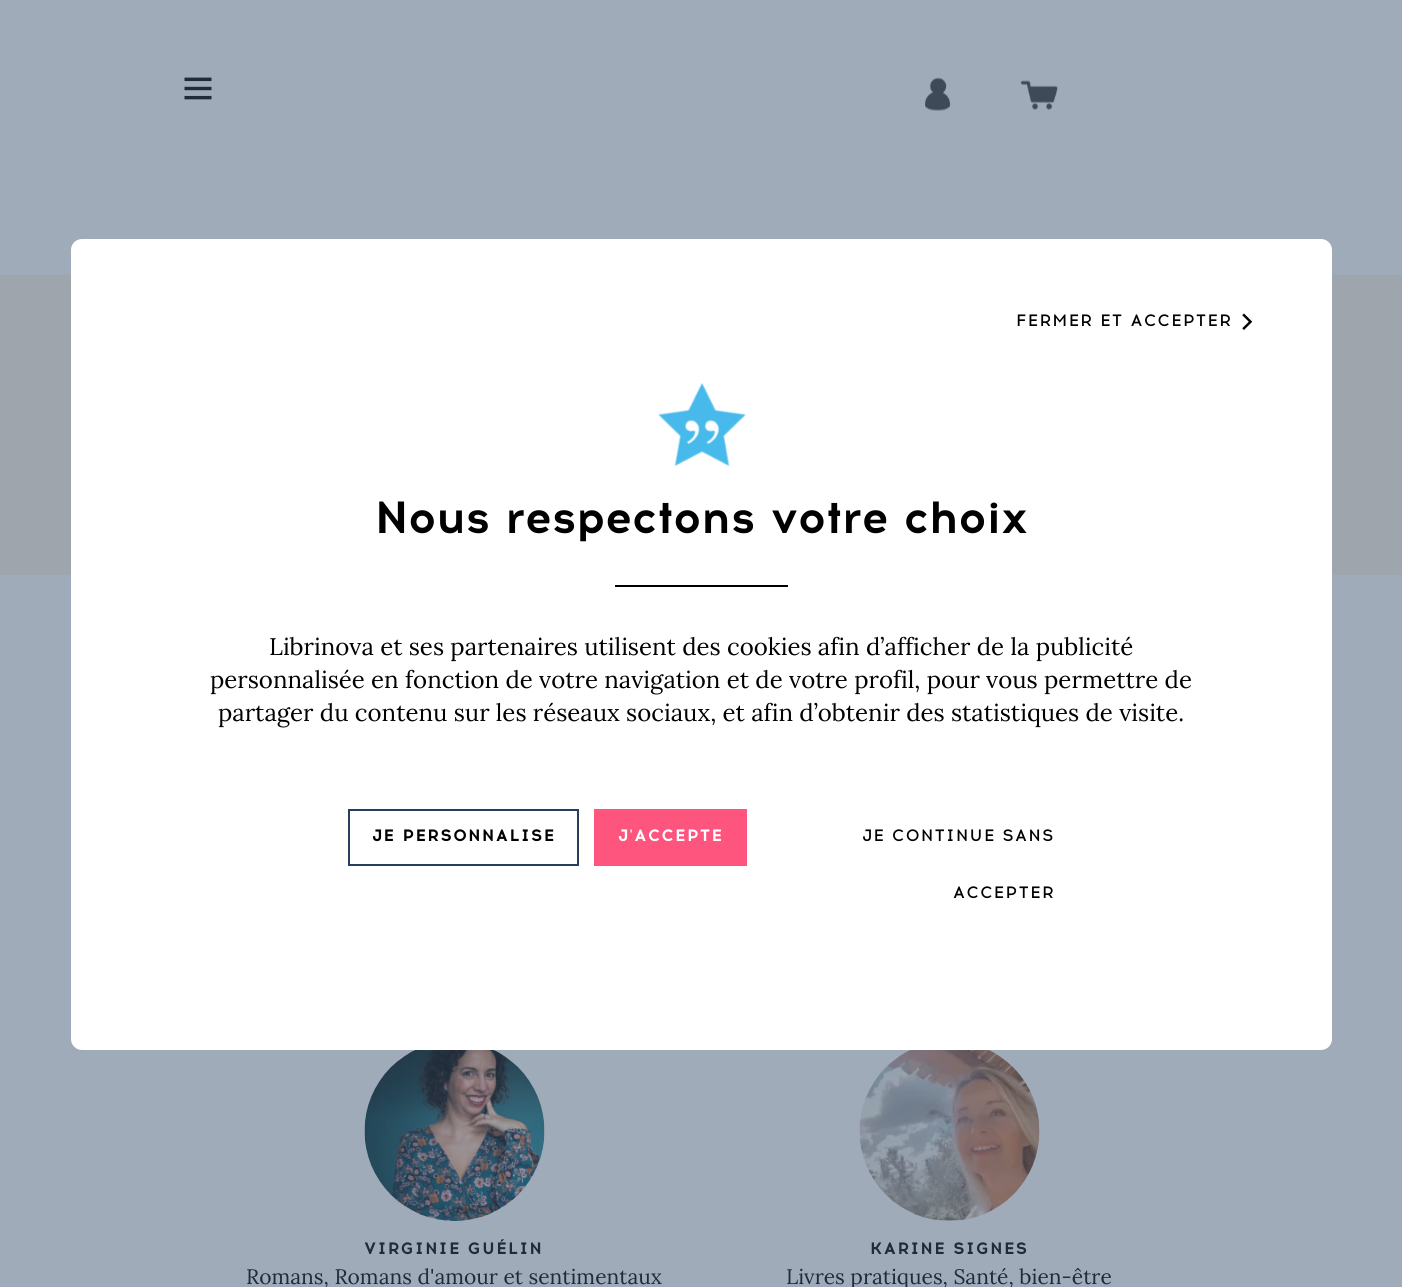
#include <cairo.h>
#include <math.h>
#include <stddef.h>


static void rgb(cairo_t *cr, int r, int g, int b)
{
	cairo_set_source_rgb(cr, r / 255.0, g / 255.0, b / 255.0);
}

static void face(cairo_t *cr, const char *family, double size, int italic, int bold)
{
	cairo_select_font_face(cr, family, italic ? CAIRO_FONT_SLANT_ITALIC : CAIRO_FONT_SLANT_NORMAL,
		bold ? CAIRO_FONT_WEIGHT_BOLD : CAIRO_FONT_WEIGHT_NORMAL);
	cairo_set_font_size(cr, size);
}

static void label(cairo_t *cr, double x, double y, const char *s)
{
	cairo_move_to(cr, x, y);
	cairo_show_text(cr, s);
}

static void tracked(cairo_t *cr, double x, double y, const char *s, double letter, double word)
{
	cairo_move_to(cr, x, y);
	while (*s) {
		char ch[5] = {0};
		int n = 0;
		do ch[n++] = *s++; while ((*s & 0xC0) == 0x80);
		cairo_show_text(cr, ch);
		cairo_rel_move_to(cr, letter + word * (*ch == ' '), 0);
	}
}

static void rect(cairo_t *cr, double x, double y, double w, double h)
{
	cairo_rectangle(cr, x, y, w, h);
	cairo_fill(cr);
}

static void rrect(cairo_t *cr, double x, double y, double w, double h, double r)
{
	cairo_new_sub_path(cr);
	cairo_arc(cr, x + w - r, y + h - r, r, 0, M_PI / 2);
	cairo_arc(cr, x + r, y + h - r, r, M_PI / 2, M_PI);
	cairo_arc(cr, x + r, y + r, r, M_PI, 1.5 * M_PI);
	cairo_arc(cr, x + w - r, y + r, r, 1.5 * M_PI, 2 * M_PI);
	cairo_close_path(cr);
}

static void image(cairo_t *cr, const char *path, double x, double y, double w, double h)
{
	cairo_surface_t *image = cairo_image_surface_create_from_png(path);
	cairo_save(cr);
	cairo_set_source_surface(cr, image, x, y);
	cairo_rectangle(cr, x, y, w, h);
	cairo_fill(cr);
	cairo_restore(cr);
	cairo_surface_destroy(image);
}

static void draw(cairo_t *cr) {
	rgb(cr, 159, 171, 185);
	cairo_paint(cr);
	image(cr, "image0.png", 184, 77, 28, 23);
	image(cr, "image1.png", 925, 77, 26, 34);
	image(cr, "image2.png", 1020, 80, 38, 30);
	rgb(cr, 159, 165, 173);
	rect(cr, 0, 275, 1402, 300);
	rgb(cr, 255, 255, 255);
	rrect(cr, 71, 239, 1261, 811, 11);
	cairo_fill(cr);
	face(cr, "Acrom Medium", 16.5, 0, 0);
	rgb(cr, 0, 0, 0);
	tracked(cr, 1016, 326, "FERMER ET ACCEPTER", 1.5, 0);
	image(cr, "image3.png", 1242, 313, 11, 17);
	image(cr, "image4.png", 658, 383, 88, 84);
	face(cr, "Acrom", 45, 0, 1);
	label(cr, 375, 533, "Nous respectons votre choix");
	rect(cr, 615, 585, 173, 2);
	face(cr, "Lora", 24, 0, 0);
	label(cr, 269, 655, "Librinova et ses partenaires utilisent des cookies afin d’afficher de la publicité");
	label(cr, 210, 688, "personnalisée en fonction de votre navigation et de votre profil, pour vous permettre de");
	label(cr, 218, 721, "partager du contenu sur les réseaux sociaux, et afin d’obtenir des statistiques de visite.");
	cairo_rectangle(cr, 349, 810, 229, 55);
	rgb(cr, 40, 62, 93);
	cairo_stroke(cr);
	face(cr, "Acrom", 16.5, 0, 1);
	rgb(cr, 0, 0, 0);
	tracked(cr, 372, 841, "JE PERSONNALISE", 1.5, 0);
	rgb(cr, 254, 85, 127);
	rect(cr, 594, 809, 153, 57);
	rgb(cr, 255, 255, 255);
	tracked(cr, 618, 841, "J'ACCEPTE", 1.5, 0);
	face(cr, "Acrom Medium", 16.5, 0, 0);
	rgb(cr, 0, 0, 0);
	tracked(cr, 862, 841, "JE CONTINUE SANS", 1.5, 0);
	tracked(cr, 953, 898, "ACCEPTER", 1.5, 0);
	image(cr, "image5.png", 364, 1050, 181, 171);
	face(cr, "Acrom", 16.5, 0, 1);
	rgb(cr, 32, 43, 58);
	tracked(cr, 364, 1254, "VIRGINIE GUÉLIN", 1.5, 0);
	face(cr, "Lora", 21, 0, 0);
	label(cr, 246, 1284, "Romans, Romans d'amour et sentimentaux");
	image(cr, "image6.png", 859, 1050, 181, 171);
	face(cr, "Acrom", 16.5, 0, 1);
	tracked(cr, 870, 1254, "KARINE SIGNES", 1.5, 0);
	face(cr, "Lora", 21, 0, 0);
	label(cr, 786, 1284, "Livres pratiques, Santé, bien-être");
}

int main(void) {
	cairo_surface_t *surface = cairo_image_surface_create(CAIRO_FORMAT_RGB24, 1402, 1287);
	cairo_t *cr = cairo_create(surface);
	cairo_font_options_t *options = cairo_font_options_create();
	cairo_font_options_set_hint_metrics(options, CAIRO_HINT_METRICS_OFF);
	cairo_font_options_set_hint_style(options, CAIRO_HINT_STYLE_NONE);
	cairo_set_font_options(cr, options);
	cairo_set_miter_limit(cr, 4);
	draw(cr);
	cairo_surface_write_to_png(surface, "render.png");
	cairo_font_options_destroy(options);
	cairo_destroy(cr);
	cairo_surface_destroy(surface);
	return 0;
}
